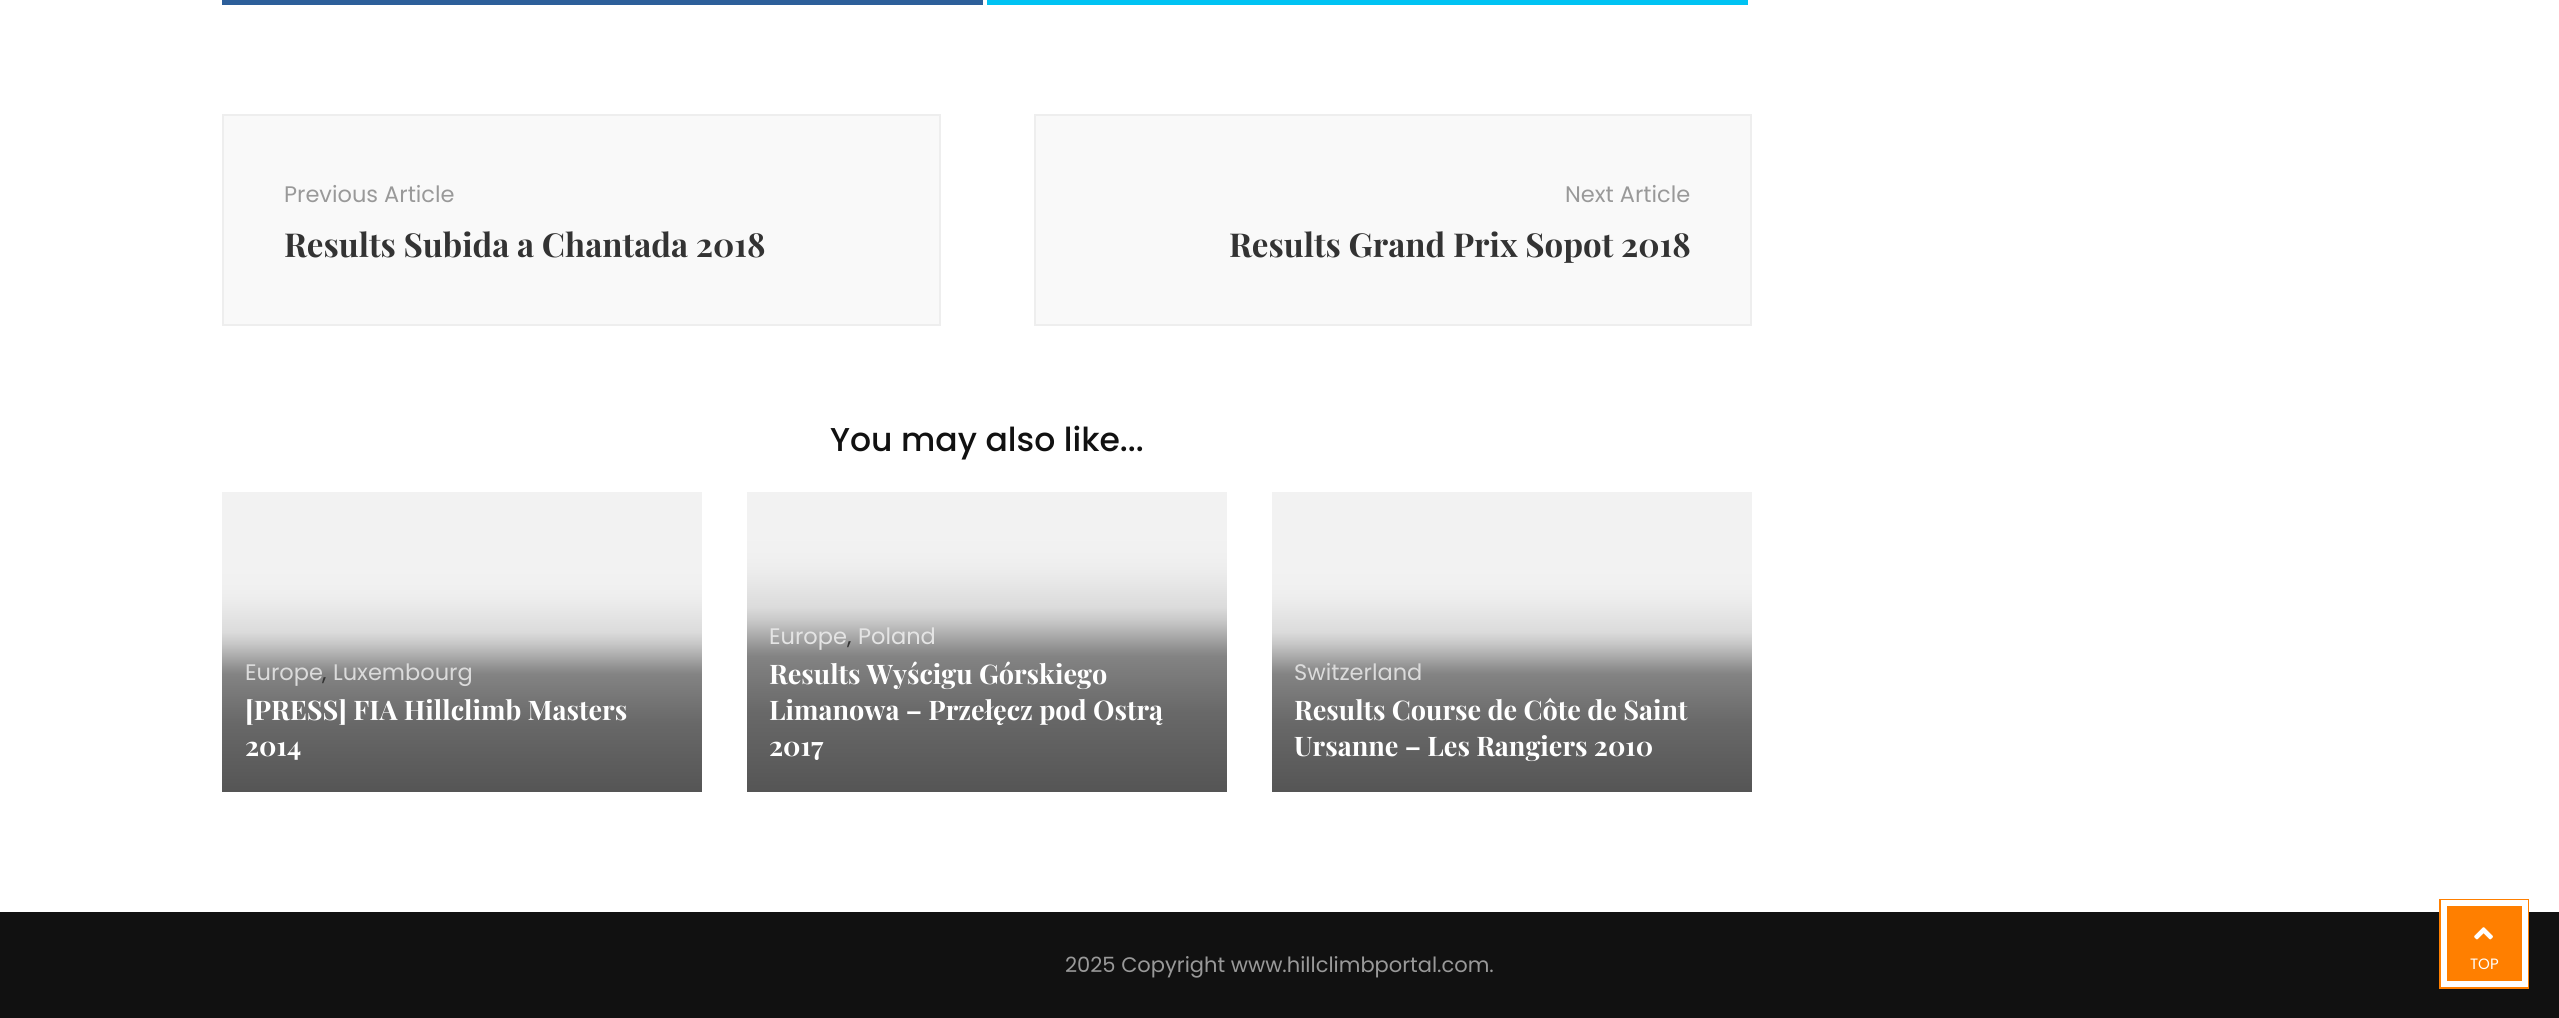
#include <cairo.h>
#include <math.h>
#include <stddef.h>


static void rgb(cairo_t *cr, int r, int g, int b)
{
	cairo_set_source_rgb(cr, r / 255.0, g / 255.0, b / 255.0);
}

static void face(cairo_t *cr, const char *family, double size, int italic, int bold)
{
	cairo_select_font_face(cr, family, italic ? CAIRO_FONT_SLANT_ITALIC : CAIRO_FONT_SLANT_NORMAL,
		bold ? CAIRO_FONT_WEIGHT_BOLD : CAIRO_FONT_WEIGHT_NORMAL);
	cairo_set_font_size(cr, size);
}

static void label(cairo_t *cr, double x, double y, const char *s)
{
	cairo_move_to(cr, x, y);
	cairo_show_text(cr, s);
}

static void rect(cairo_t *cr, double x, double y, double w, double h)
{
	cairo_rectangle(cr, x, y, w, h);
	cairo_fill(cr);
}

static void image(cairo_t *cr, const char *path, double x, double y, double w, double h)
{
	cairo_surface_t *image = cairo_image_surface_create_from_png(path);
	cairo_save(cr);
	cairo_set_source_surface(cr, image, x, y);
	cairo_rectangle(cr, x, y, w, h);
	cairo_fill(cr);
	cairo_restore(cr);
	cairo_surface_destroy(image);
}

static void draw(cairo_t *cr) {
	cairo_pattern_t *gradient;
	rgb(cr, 255, 255, 255);
	cairo_paint(cr);
	rgb(cr, 45, 95, 154);
	rect(cr, 222, 0, 761, 5);
	rgb(cr, 0, 195, 243);
	rect(cr, 987, 0, 761, 5);
	rgb(cr, 249, 249, 249);
	cairo_rectangle(cr, 223, 115, 717, 210);
	cairo_fill_preserve(cr);
	rgb(cr, 238, 238, 238);
	cairo_stroke(cr);
	face(cr, "Poppins", 22.5, 0, 0);
	rgb(cr, 153, 153, 153);
	label(cr, 284, 202, "Previous Article");
	face(cr, "Playfair Display", 33, 0, 1);
	rgb(cr, 51, 51, 51);
	label(cr, 284, 257, "Results Subida a Chantada 2018");
	rgb(cr, 249, 249, 249);
	cairo_rectangle(cr, 1035, 115, 716, 210);
	cairo_fill_preserve(cr);
	rgb(cr, 238, 238, 238);
	cairo_stroke(cr);
	face(cr, "Poppins", 22.5, 0, 0);
	rgb(cr, 153, 153, 153);
	label(cr, 1565, 202, "Next Article");
	face(cr, "Playfair Display", 33, 0, 1);
	rgb(cr, 51, 51, 51);
	label(cr, 1229, 257, "Results Grand Prix Sopot 2018");
	face(cr, "Poppins Medium", 33, 0, 0);
	rgb(cr, 17, 17, 17);
	label(cr, 830, 451, "You may also like...");
	rgb(cr, 242, 242, 242);
	rect(cr, 222, 492, 480, 65);
	gradient = cairo_pattern_create_linear(462, 557, 462, 792);
	cairo_pattern_add_color_stop_rgba(gradient, 0, 0.949, 0.949, 0.949, 1);
	cairo_pattern_add_color_stop_rgba(gradient, 0.04, 0.949, 0.949, 0.949, 1);
	cairo_pattern_add_color_stop_rgba(gradient, 0.11, 0.945, 0.945, 0.945, 1);
	cairo_pattern_add_color_stop_rgba(gradient, 0.15, 0.937, 0.937, 0.937, 1);
	cairo_pattern_add_color_stop_rgba(gradient, 0.19, 0.925, 0.925, 0.925, 1);
	cairo_pattern_add_color_stop_rgba(gradient, 0.32, 0.859, 0.859, 0.859, 1);
	cairo_pattern_add_color_stop_rgba(gradient, 0.37, 0.78, 0.78, 0.78, 1);
	cairo_pattern_add_color_stop_rgba(gradient, 0.43, 0.655, 0.655, 0.655, 1);
	cairo_pattern_add_color_stop_rgba(gradient, 0.47, 0.569, 0.569, 0.569, 1);
	cairo_pattern_add_color_stop_rgba(gradient, 0.5, 0.514, 0.514, 0.514, 1);
	cairo_pattern_add_color_stop_rgba(gradient, 0.71, 0.408, 0.408, 0.408, 1);
	cairo_pattern_add_color_stop_rgba(gradient, 1, 0.333, 0.333, 0.333, 1);
	cairo_set_source(cr, gradient);
	cairo_pattern_destroy(gradient);
	rect(cr, 222, 557, 480, 235);
	face(cr, "Poppins", 22.5, 0, 0);
	rgb(cr, 219, 219, 219);
	label(cr, 245, 680, "Europe");
	rgb(cr, 51, 51, 51);
	label(cr, 322, 680, ",");
	rgb(cr, 219, 219, 219);
	label(cr, 333, 680, "Luxembourg");
	face(cr, "Playfair Display", 27, 0, 1);
	rgb(cr, 255, 255, 255);
	label(cr, 245, 720, "[PRESS] FIA Hillclimb Masters");
	label(cr, 245, 756, "2014");
	rgb(cr, 242, 242, 242);
	rect(cr, 747, 492, 480, 29);
	gradient = cairo_pattern_create_linear(987, 521, 987, 792);
	cairo_pattern_add_color_stop_rgba(gradient, 0, 0.949, 0.949, 0.949, 1);
	cairo_pattern_add_color_stop_rgba(gradient, 0.04, 0.949, 0.949, 0.949, 1);
	cairo_pattern_add_color_stop_rgba(gradient, 0.11, 0.945, 0.945, 0.945, 1);
	cairo_pattern_add_color_stop_rgba(gradient, 0.15, 0.937, 0.937, 0.937, 1);
	cairo_pattern_add_color_stop_rgba(gradient, 0.19, 0.925, 0.925, 0.925, 1);
	cairo_pattern_add_color_stop_rgba(gradient, 0.32, 0.859, 0.859, 0.859, 1);
	cairo_pattern_add_color_stop_rgba(gradient, 0.37, 0.78, 0.78, 0.78, 1);
	cairo_pattern_add_color_stop_rgba(gradient, 0.43, 0.655, 0.655, 0.655, 1);
	cairo_pattern_add_color_stop_rgba(gradient, 0.47, 0.569, 0.569, 0.569, 1);
	cairo_pattern_add_color_stop_rgba(gradient, 0.5, 0.514, 0.514, 0.514, 1);
	cairo_pattern_add_color_stop_rgba(gradient, 0.71, 0.408, 0.408, 0.408, 1);
	cairo_pattern_add_color_stop_rgba(gradient, 1, 0.333, 0.333, 0.333, 1);
	cairo_set_source(cr, gradient);
	cairo_pattern_destroy(gradient);
	rect(cr, 747, 521, 480, 271);
	face(cr, "Poppins", 22.5, 0, 0);
	rgb(cr, 228, 228, 228);
	label(cr, 769, 644, "Europe");
	rgb(cr, 51, 51, 51);
	label(cr, 847, 644, ",");
	rgb(cr, 228, 228, 228);
	label(cr, 858, 644, "Poland");
	face(cr, "Playfair Display", 27, 0, 1);
	rgb(cr, 255, 255, 255);
	label(cr, 769, 684, "Results Wyścigu Górskiego");
	label(cr, 769, 720, "Limanowa – Przełęcz pod Ostrą");
	label(cr, 769, 756, "2017");
	rgb(cr, 242, 242, 242);
	rect(cr, 1272, 492, 480, 65);
	gradient = cairo_pattern_create_linear(1512, 557, 1512, 792);
	cairo_pattern_add_color_stop_rgba(gradient, 0, 0.949, 0.949, 0.949, 1);
	cairo_pattern_add_color_stop_rgba(gradient, 0.04, 0.949, 0.949, 0.949, 1);
	cairo_pattern_add_color_stop_rgba(gradient, 0.11, 0.945, 0.945, 0.945, 1);
	cairo_pattern_add_color_stop_rgba(gradient, 0.15, 0.937, 0.937, 0.937, 1);
	cairo_pattern_add_color_stop_rgba(gradient, 0.19, 0.925, 0.925, 0.925, 1);
	cairo_pattern_add_color_stop_rgba(gradient, 0.32, 0.859, 0.859, 0.859, 1);
	cairo_pattern_add_color_stop_rgba(gradient, 0.37, 0.78, 0.78, 0.78, 1);
	cairo_pattern_add_color_stop_rgba(gradient, 0.43, 0.655, 0.655, 0.655, 1);
	cairo_pattern_add_color_stop_rgba(gradient, 0.47, 0.569, 0.569, 0.569, 1);
	cairo_pattern_add_color_stop_rgba(gradient, 0.5, 0.514, 0.514, 0.514, 1);
	cairo_pattern_add_color_stop_rgba(gradient, 0.71, 0.408, 0.408, 0.408, 1);
	cairo_pattern_add_color_stop_rgba(gradient, 1, 0.333, 0.333, 0.333, 1);
	cairo_set_source(cr, gradient);
	cairo_pattern_destroy(gradient);
	rect(cr, 1272, 557, 480, 235);
	face(cr, "Poppins", 22.5, 0, 0);
	rgb(cr, 219, 219, 219);
	label(cr, 1294, 680, "Switzerland");
	face(cr, "Playfair Display", 27, 0, 1);
	rgb(cr, 255, 255, 255);
	label(cr, 1294, 720, "Results Course de Côte de Saint");
	label(cr, 1294, 756, "Ursanne – Les Rangiers 2010");
	rgb(cr, 17, 17, 17);
	rect(cr, 0, 912, 2559, 106);
	face(cr, "Poppins", 21, 0, 0);
	rgb(cr, 153, 153, 153);
	label(cr, 1065, 972, "2025 Copyright www.hillclimbportal.com.");
	rgb(cr, 255, 127, 0);
	rect(cr, 2439, 899, 90, 90);
	image(cr, "image0.png", 2474, 927, 19, 13);
	cairo_rectangle(cr, 2444, 903, 81, 81);
	rgb(cr, 255, 255, 255);
	cairo_set_line_width(cr, 6);
	cairo_stroke(cr);
	face(cr, "Poppins", 15, 0, 0);
	label(cr, 2470, 969, "TOP");
}

int main(void) {
	cairo_surface_t *surface = cairo_image_surface_create(CAIRO_FORMAT_RGB24, 2559, 1018);
	cairo_t *cr = cairo_create(surface);
	cairo_font_options_t *options = cairo_font_options_create();
	cairo_font_options_set_hint_metrics(options, CAIRO_HINT_METRICS_OFF);
	cairo_font_options_set_hint_style(options, CAIRO_HINT_STYLE_NONE);
	cairo_set_font_options(cr, options);
	cairo_set_miter_limit(cr, 4);
	draw(cr);
	cairo_surface_write_to_png(surface, "render.png");
	cairo_font_options_destroy(options);
	cairo_destroy(cr);
	cairo_surface_destroy(surface);
	return 0;
}
